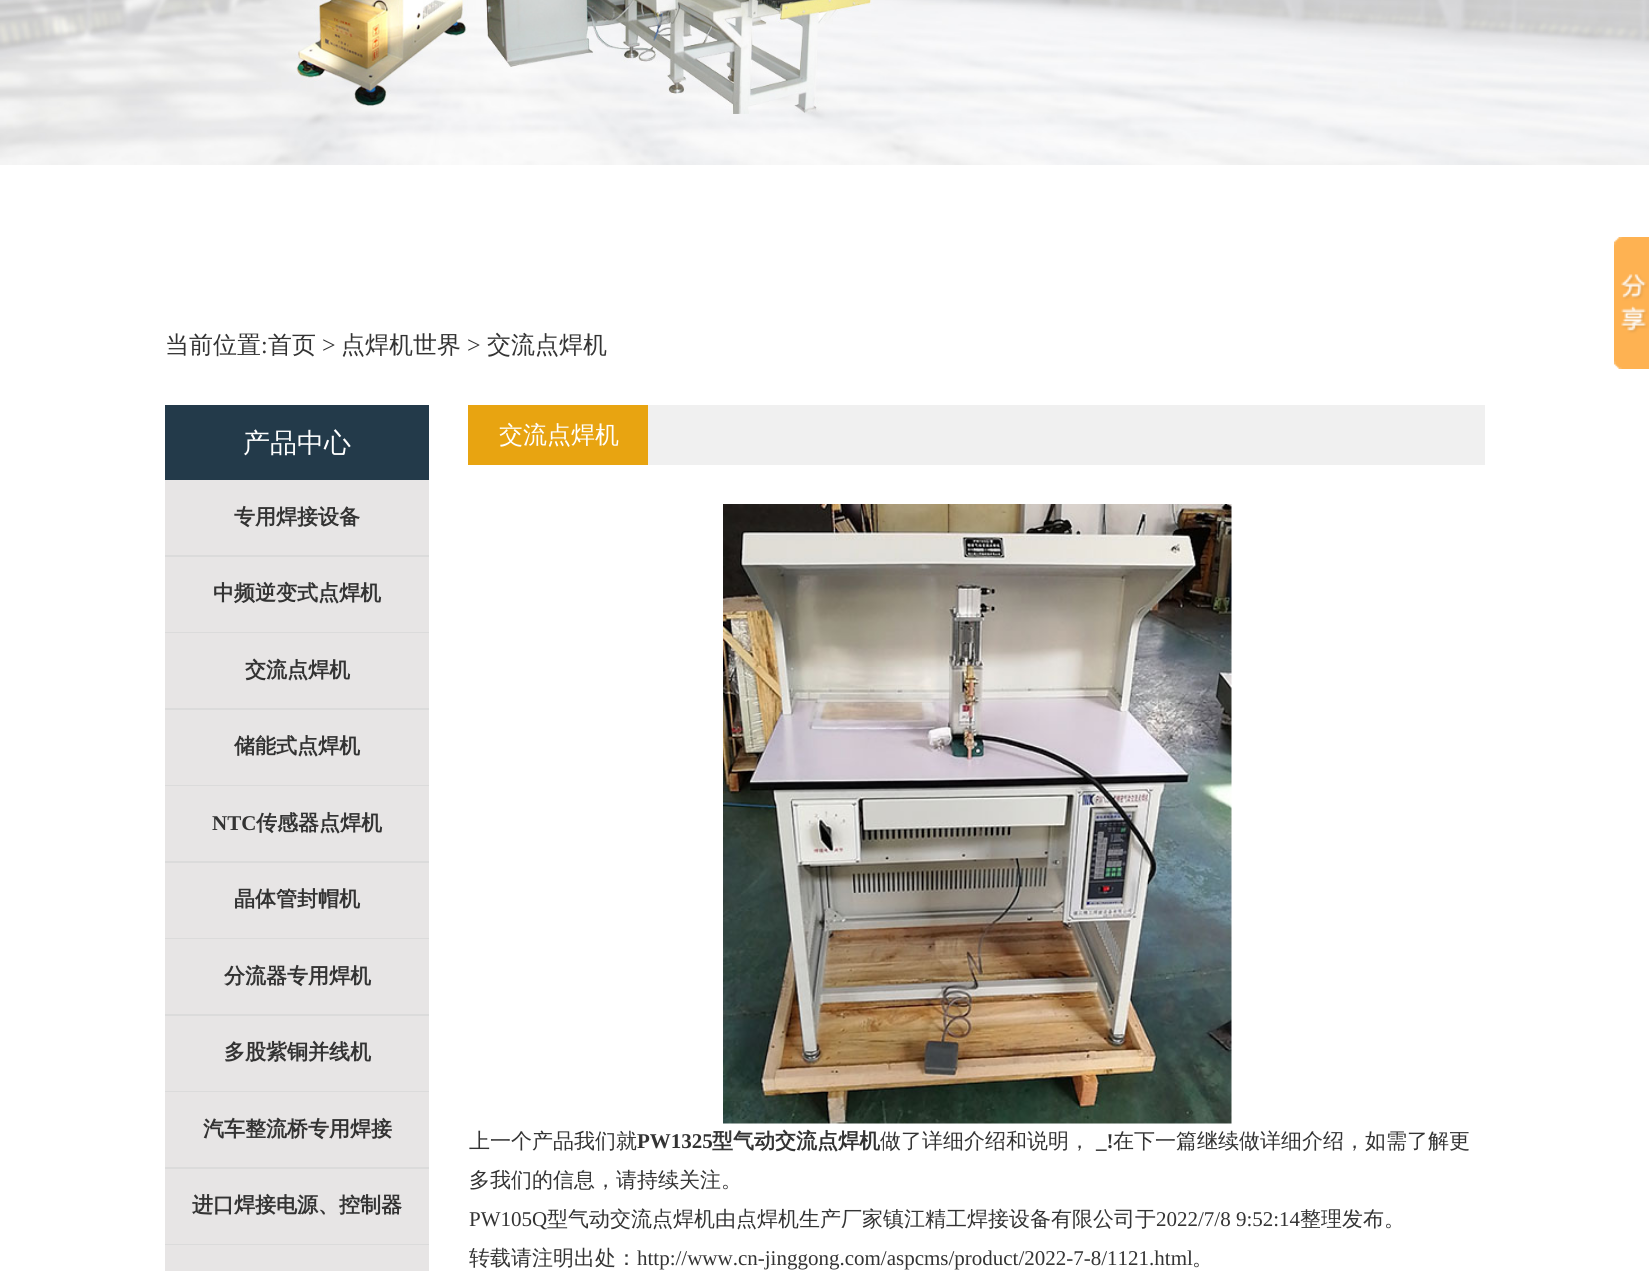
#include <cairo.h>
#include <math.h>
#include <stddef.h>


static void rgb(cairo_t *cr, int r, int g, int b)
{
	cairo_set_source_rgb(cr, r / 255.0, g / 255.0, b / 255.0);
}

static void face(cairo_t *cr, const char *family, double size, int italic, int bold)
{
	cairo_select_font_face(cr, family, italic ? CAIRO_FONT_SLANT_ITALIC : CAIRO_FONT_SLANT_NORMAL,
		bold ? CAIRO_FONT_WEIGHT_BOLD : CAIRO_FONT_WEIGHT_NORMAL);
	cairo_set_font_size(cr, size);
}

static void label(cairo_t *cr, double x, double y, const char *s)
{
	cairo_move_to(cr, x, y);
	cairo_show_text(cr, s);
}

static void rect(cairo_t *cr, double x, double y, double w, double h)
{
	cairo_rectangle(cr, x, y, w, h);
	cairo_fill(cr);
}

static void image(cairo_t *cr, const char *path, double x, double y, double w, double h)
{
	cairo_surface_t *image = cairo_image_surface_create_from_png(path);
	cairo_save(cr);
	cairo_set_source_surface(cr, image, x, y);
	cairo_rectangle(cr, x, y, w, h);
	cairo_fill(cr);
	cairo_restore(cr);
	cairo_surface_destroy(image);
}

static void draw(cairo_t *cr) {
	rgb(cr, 255, 255, 255);
	cairo_paint(cr);
	image(cr, "image0.png", 0, 0, 1649, 165);
	image(cr, "image1.png", 1614, 237, 35, 132);
	face(cr, "WenQuanYi Zen Hei Medium", 24, 0, 0);
	rgb(cr, 51, 51, 51);
	label(cr, 165, 353, "当前位置");
	face(cr, "Liberation Serif", 24, 0, 0);
	label(cr, 261, 353, ":");
	face(cr, "WenQuanYi Zen Hei Medium", 24, 0, 0);
	label(cr, 268, 353, "首页");
	face(cr, "Liberation Serif", 24, 0, 0);
	label(cr, 322, 353, ">");
	face(cr, "WenQuanYi Zen Hei Medium", 24, 0, 0);
	label(cr, 341, 353, "点焊机世界");
	face(cr, "Liberation Serif", 24, 0, 0);
	label(cr, 467, 353, ">");
	face(cr, "WenQuanYi Zen Hei Medium", 24, 0, 0);
	label(cr, 487, 353, "交流点焊机");
	rgb(cr, 35, 58, 74);
	rect(cr, 165, 405, 264, 75);
	face(cr, "WenQuanYi Zen Hei Medium", 27, 0, 0);
	rgb(cr, 255, 255, 255);
	label(cr, 243, 452, "产品中心");
	rgb(cr, 231, 229, 229);
	rect(cr, 165, 480, 264, 75);
	rgb(cr, 219, 219, 219);
	rect(cr, 165, 555, 264, 2);
	face(cr, "WenQuanYi Zen Hei", 21, 0, 1);
	rgb(cr, 51, 51, 51);
	label(cr, 234, 524, "专用焊接设备");
	rgb(cr, 231, 229, 229);
	rect(cr, 165, 557, 264, 75);
	rgb(cr, 219, 219, 219);
	rect(cr, 165, 632, 264, 1);
	rgb(cr, 51, 51, 51);
	label(cr, 213, 600, "中频逆变式点焊机");
	rgb(cr, 231, 229, 229);
	rect(cr, 165, 633, 264, 75);
	rgb(cr, 219, 219, 219);
	rect(cr, 165, 708, 264, 2);
	rgb(cr, 51, 51, 51);
	label(cr, 245, 677, "交流点焊机");
	rgb(cr, 231, 229, 229);
	rect(cr, 165, 710, 264, 75);
	rgb(cr, 219, 219, 219);
	rect(cr, 165, 785, 264, 1);
	rgb(cr, 51, 51, 51);
	label(cr, 234, 753, "储能式点焊机");
	rgb(cr, 231, 229, 229);
	rect(cr, 165, 786, 264, 75);
	rgb(cr, 219, 219, 219);
	rect(cr, 165, 861, 264, 2);
	face(cr, "Liberation Serif", 21, 0, 1);
	rgb(cr, 51, 51, 51);
	label(cr, 212, 830, "NTC");
	face(cr, "WenQuanYi Zen Hei", 21, 0, 1);
	label(cr, 256, 830, "传感器点焊机");
	rgb(cr, 231, 229, 229);
	rect(cr, 165, 863, 264, 75);
	rgb(cr, 219, 219, 219);
	rect(cr, 165, 938, 264, 1);
	rgb(cr, 51, 51, 51);
	label(cr, 234, 906, "晶体管封帽机");
	rgb(cr, 231, 229, 229);
	rect(cr, 165, 939, 264, 75);
	rgb(cr, 219, 219, 219);
	rect(cr, 165, 1014, 264, 2);
	rgb(cr, 51, 51, 51);
	label(cr, 224, 983, "分流器专用焊机");
	rgb(cr, 231, 229, 229);
	rect(cr, 165, 1016, 264, 75);
	rgb(cr, 219, 219, 219);
	rect(cr, 165, 1091, 264, 1);
	rgb(cr, 51, 51, 51);
	label(cr, 224, 1059, "多股紫铜并线机");
	rgb(cr, 231, 229, 229);
	rect(cr, 165, 1092, 264, 75);
	rgb(cr, 219, 219, 219);
	rect(cr, 165, 1167, 264, 2);
	rgb(cr, 51, 51, 51);
	label(cr, 203, 1136, "汽车整流桥专用焊接");
	rgb(cr, 231, 229, 229);
	rect(cr, 165, 1169, 264, 75);
	rgb(cr, 219, 219, 219);
	rect(cr, 165, 1244, 264, 1);
	rgb(cr, 51, 51, 51);
	label(cr, 192, 1212, "进口焊接电源、控制器");
	rgb(cr, 231, 229, 229);
	rect(cr, 165, 1245, 264, 26);
	rgb(cr, 240, 240, 240);
	rect(cr, 648, 405, 837, 60);
	rgb(cr, 232, 164, 17);
	rect(cr, 468, 405, 180, 60);
	face(cr, "WenQuanYi Zen Hei Medium", 24, 0, 0);
	rgb(cr, 255, 255, 255);
	label(cr, 499, 443, "交流点焊机");
	image(cr, "image2.png", 723, 504, 509, 620);
	face(cr, "WenQuanYi Zen Hei Medium", 21, 0, 0);
	rgb(cr, 51, 51, 51);
	label(cr, 469, 1148, "上一个产品我们就");
	face(cr, "Liberation Serif", 21, 0, 1);
	label(cr, 637, 1148, "PW1325");
	face(cr, "WenQuanYi Zen Hei", 21, 0, 1);
	label(cr, 712, 1148, "型气动交流点焊机");
	face(cr, "WenQuanYi Zen Hei Medium", 21, 0, 0);
	label(cr, 880, 1148, "做了详细介绍和说明，");
	face(cr, "Liberation Serif", 21, 0, 1);
	label(cr, 1096, 1148, "_!");
	face(cr, "WenQuanYi Zen Hei Medium", 21, 0, 0);
	label(cr, 1113, 1148, "在下一篇继续做详细介绍，如需了解更");
	label(cr, 469, 1187, "多我们的信息，请持续关注。");
	face(cr, "Liberation Serif", 21, 0, 0);
	label(cr, 469, 1226, "PW105Q");
	face(cr, "WenQuanYi Zen Hei Medium", 21, 0, 0);
	label(cr, 547, 1226, "型气动交流点焊机由点焊机生产厂家镇江精工焊接设备有限公司于");
	face(cr, "Liberation Serif", 21, 0, 0);
	label(cr, 1156, 1226, "2022/7/8 9:52:14");
	face(cr, "WenQuanYi Zen Hei Medium", 21, 0, 0);
	label(cr, 1300, 1226, "整理发布。");
	label(cr, 469, 1265, "转载请注明出处：");
	face(cr, "Liberation Serif", 21, 0, 0);
	label(cr, 637, 1265, "http://www.cn-jinggong.com/aspcms/product/2022-7-8/1121.html");
	face(cr, "WenQuanYi Zen Hei Medium", 21, 0, 0);
	label(cr, 1192, 1265, "。");
}

int main(void) {
	cairo_surface_t *surface = cairo_image_surface_create(CAIRO_FORMAT_RGB24, 1649, 1271);
	cairo_t *cr = cairo_create(surface);
	cairo_font_options_t *options = cairo_font_options_create();
	cairo_font_options_set_hint_metrics(options, CAIRO_HINT_METRICS_OFF);
	cairo_font_options_set_hint_style(options, CAIRO_HINT_STYLE_NONE);
	cairo_set_font_options(cr, options);
	cairo_set_miter_limit(cr, 4);
	draw(cr);
	cairo_surface_write_to_png(surface, "render.png");
	cairo_font_options_destroy(options);
	cairo_destroy(cr);
	cairo_surface_destroy(surface);
	return 0;
}
